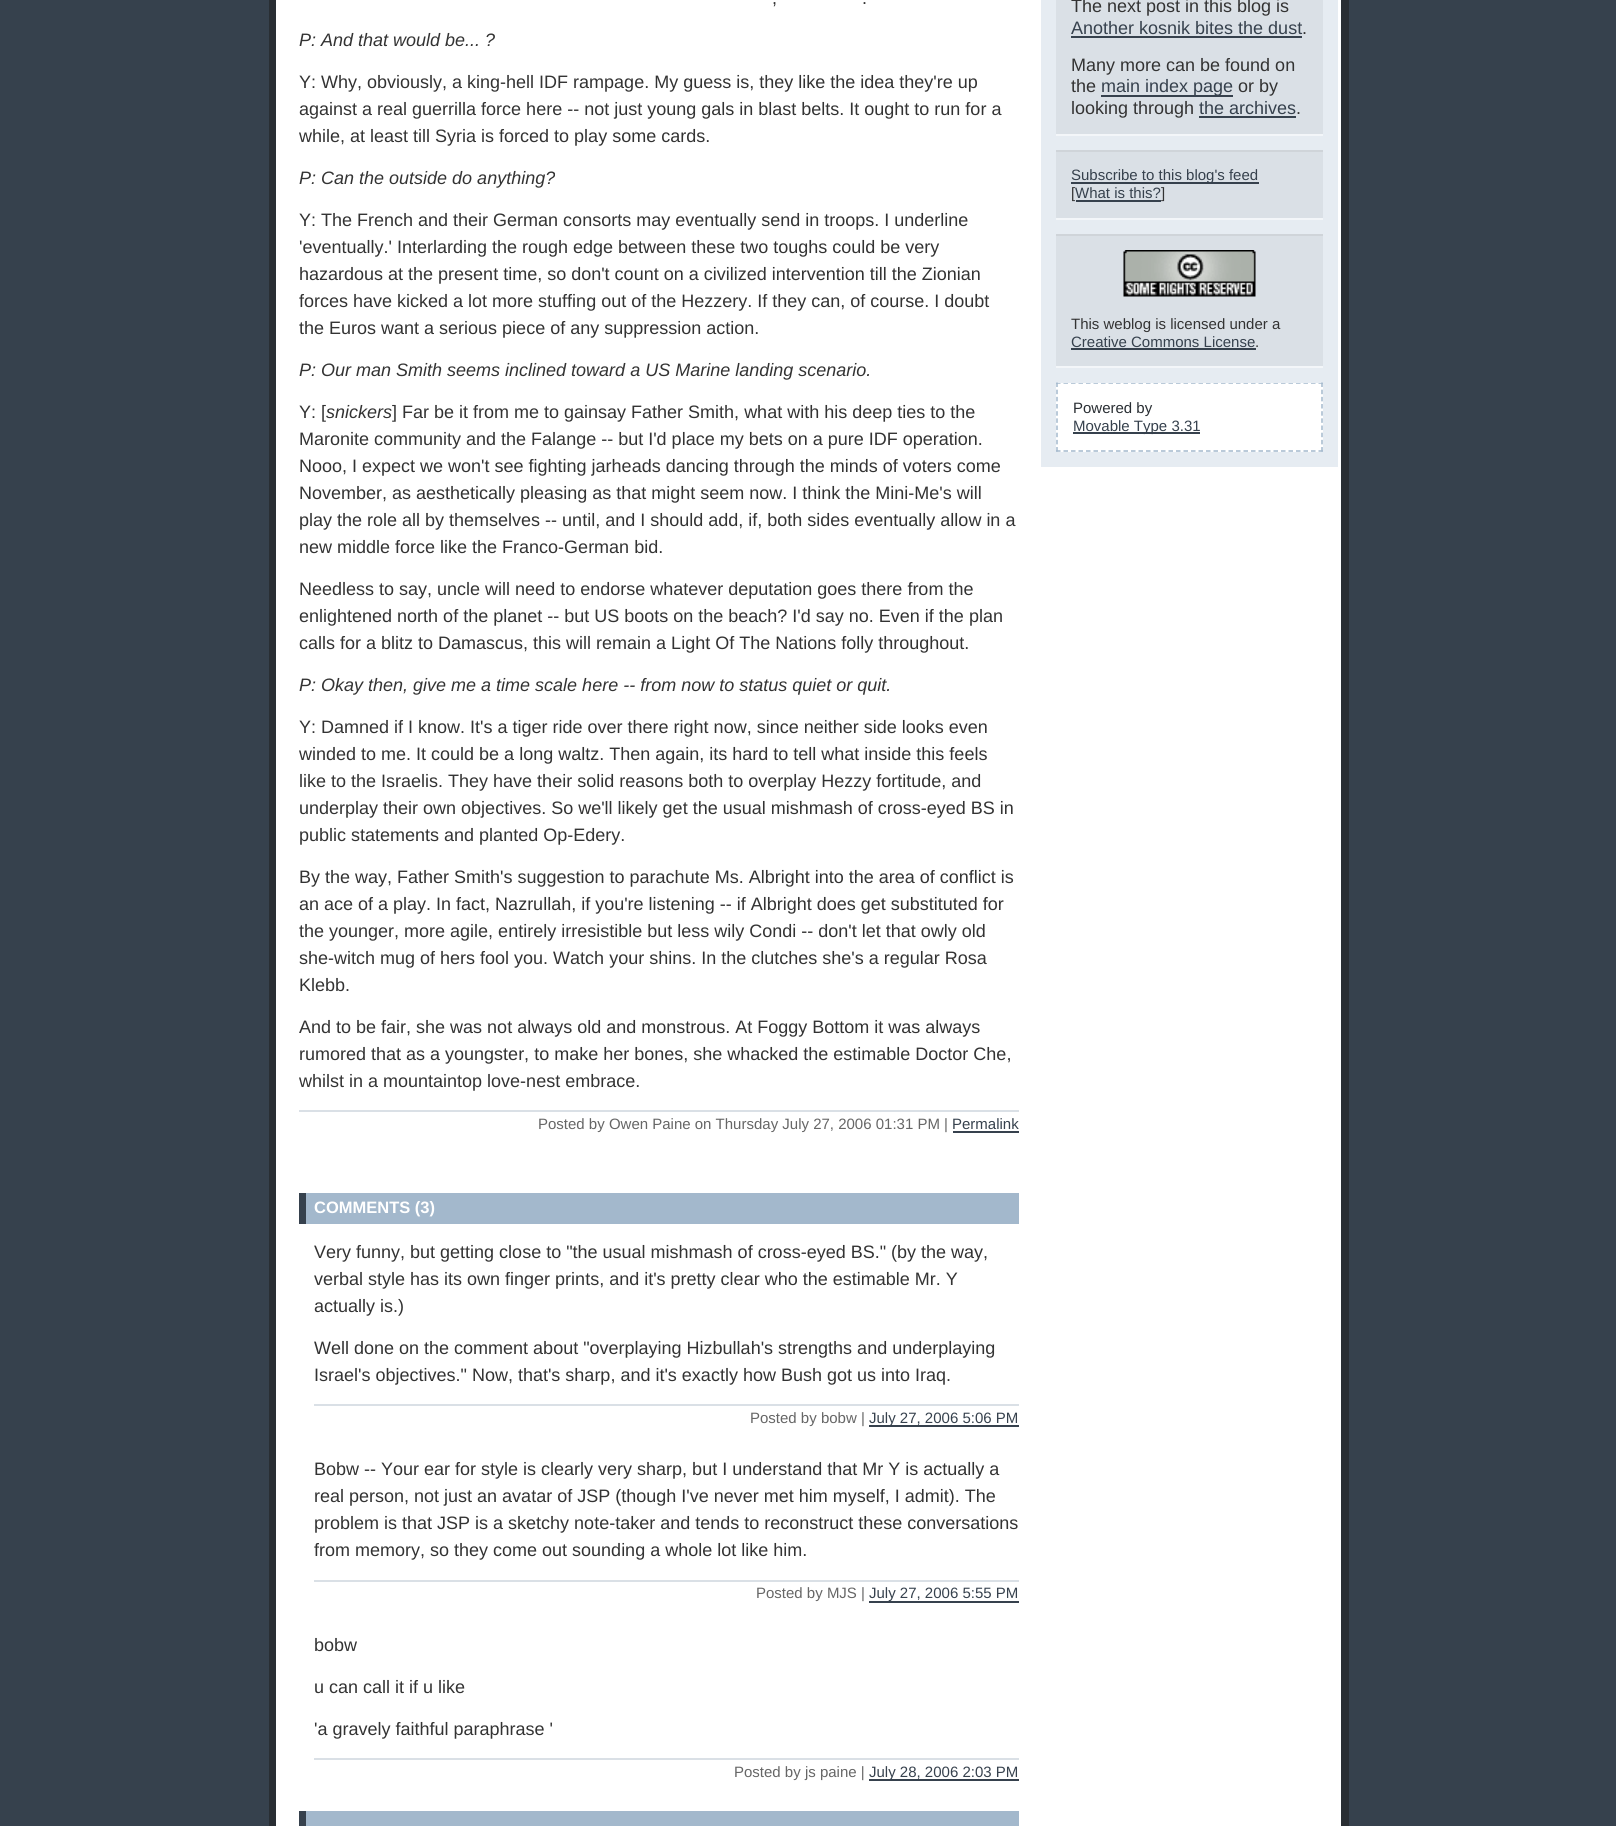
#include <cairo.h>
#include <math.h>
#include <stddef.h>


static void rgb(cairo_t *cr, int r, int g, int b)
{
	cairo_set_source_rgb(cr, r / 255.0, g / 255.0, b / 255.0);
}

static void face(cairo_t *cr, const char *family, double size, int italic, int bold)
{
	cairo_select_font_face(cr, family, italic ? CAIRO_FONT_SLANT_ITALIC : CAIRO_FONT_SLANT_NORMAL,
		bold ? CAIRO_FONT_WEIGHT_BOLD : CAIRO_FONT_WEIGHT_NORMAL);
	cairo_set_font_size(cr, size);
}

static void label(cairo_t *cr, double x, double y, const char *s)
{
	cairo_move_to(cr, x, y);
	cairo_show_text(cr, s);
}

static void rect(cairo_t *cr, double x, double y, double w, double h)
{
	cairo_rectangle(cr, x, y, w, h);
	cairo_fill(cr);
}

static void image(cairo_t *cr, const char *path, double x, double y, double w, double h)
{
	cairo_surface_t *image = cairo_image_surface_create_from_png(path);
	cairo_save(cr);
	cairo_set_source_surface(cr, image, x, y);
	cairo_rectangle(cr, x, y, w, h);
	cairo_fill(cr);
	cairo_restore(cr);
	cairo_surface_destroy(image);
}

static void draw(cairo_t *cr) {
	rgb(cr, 54, 65, 77);
	cairo_paint(cr);
	rgb(cr, 255, 255, 255);
	rect(cr, 276, 0, 1065, 1826);
	rgb(cr, 41, 46, 51);
	rect(cr, 1341, 0, 8, 1826);
	rect(cr, 269, 0, 7, 1826);
	face(cr, "Liberation Sans", 18, 0, 0);
	rgb(cr, 51, 51, 51);
	label(cr, 772, 4, ",");
	label(cr, 862, 4, ".");
	face(cr, "Liberation Sans", 18, 1, 0);
	label(cr, 299, 46, "P: And that would be... ?");
	face(cr, "Liberation Sans", 18, 0, 0);
	label(cr, 299, 88, "Y: Why, obviously, a king-hell IDF rampage. My guess is, they like the idea they're up");
	label(cr, 299, 115, "against a real guerrilla force here -- not just young gals in blast belts. It ought to run for a");
	label(cr, 299, 142, "while, at least till Syria is forced to play some cards.");
	face(cr, "Liberation Sans", 18, 1, 0);
	label(cr, 299, 184, "P: Can the outside do anything?");
	face(cr, "Liberation Sans", 18, 0, 0);
	label(cr, 299, 226, "Y: The French and their German consorts may eventually send in troops. I underline");
	label(cr, 299, 253, "'eventually.' Interlarding the rough edge between these two toughs could be very");
	label(cr, 299, 280, "hazardous at the present time, so don't count on a civilized intervention till the Zionian");
	label(cr, 299, 307, "forces have kicked a lot more stuffing out of the Hezzery. If they can, of course. I doubt");
	label(cr, 299, 334, "the Euros want a serious piece of any suppression action.");
	face(cr, "Liberation Sans", 18, 1, 0);
	label(cr, 299, 376, "P: Our man Smith seems inclined toward a US Marine landing scenario.");
	face(cr, "Liberation Sans", 18, 0, 0);
	label(cr, 299, 418, "Y: [");
	face(cr, "Liberation Sans", 18, 1, 0);
	label(cr, 326, 418, "snickers");
	face(cr, "Liberation Sans", 18, 0, 0);
	label(cr, 392, 418, "] Far be it from me to gainsay Father Smith, what with his deep ties to the");
	label(cr, 299, 445, "Maronite community and the Falange -- but I'd place my bets on a pure IDF operation.");
	label(cr, 299, 472, "Nooo, I expect we won't see fighting jarheads dancing through the minds of voters come");
	label(cr, 299, 499, "November, as aesthetically pleasing as that might seem now. I think the Mini-Me's will");
	label(cr, 299, 526, "play the role all by themselves -- until, and I should add, if, both sides eventually allow in a");
	label(cr, 299, 553, "new middle force like the Franco-German bid.");
	label(cr, 299, 595, "Needless to say, uncle will need to endorse whatever deputation goes there from the");
	label(cr, 299, 622, "enlightened north of the planet -- but US boots on the beach? I'd say no. Even if the plan");
	label(cr, 299, 649, "calls for a blitz to Damascus, this will remain a Light Of The Nations folly throughout.");
	face(cr, "Liberation Sans", 18, 1, 0);
	label(cr, 299, 691, "P: Okay then, give me a time scale here -- from now to status quiet or quit.");
	face(cr, "Liberation Sans", 18, 0, 0);
	label(cr, 299, 733, "Y: Damned if I know. It's a tiger ride over there right now, since neither side looks even");
	label(cr, 299, 760, "winded to me. It could be a long waltz. Then again, its hard to tell what inside this feels");
	label(cr, 299, 787, "like to the Israelis. They have their solid reasons both to overplay Hezzy fortitude, and");
	label(cr, 299, 814, "underplay their own objectives. So we'll likely get the usual mishmash of cross-eyed BS in");
	label(cr, 299, 841, "public statements and planted Op-Edery.");
	label(cr, 299, 883, "By the way, Father Smith's suggestion to parachute Ms. Albright into the area of conflict is");
	label(cr, 299, 910, "an ace of a play. In fact, Nazrullah, if you're listening -- if Albright does get substituted for");
	label(cr, 299, 937, "the younger, more agile, entirely irresistible but less wily Condi -- don't let that owly old");
	label(cr, 299, 964, "she-witch mug of hers fool you. Watch your shins. In the clutches she's a regular Rosa");
	label(cr, 299, 991, "Klebb.");
	label(cr, 299, 1033, "And to be fair, she was not always old and monstrous. At Foggy Bottom it was always");
	label(cr, 299, 1060, "rumored that as a youngster, to make her bones, she whacked the estimable Doctor Che,");
	label(cr, 299, 1087, "whilst in a mountaintop love-nest embrace.");
	rgb(cr, 218, 224, 230);
	rect(cr, 299, 1110, 720, 2);
	face(cr, "Liberation Sans", 15, 0, 0);
	rgb(cr, 102, 102, 102);
	label(cr, 538, 1129, "Posted by Owen Paine on Thursday July 27, 2006 01:31 PM |");
	rgb(cr, 54, 65, 77);
	label(cr, 952, 1129, "Permalink");
	rect(cr, 953, 1131, 66, 2);
	rgb(cr, 163, 184, 204);
	rect(cr, 306, 1193, 713, 31);
	rgb(cr, 54, 65, 77);
	rect(cr, 299, 1193, 7, 31);
	face(cr, "Liberation Sans", 16.5, 0, 1);
	rgb(cr, 255, 255, 255);
	label(cr, 314, 1213, "COMMENTS (3)");
	face(cr, "Liberation Sans", 18, 0, 0);
	rgb(cr, 51, 51, 51);
	label(cr, 314, 1258, "Very funny, but getting close to \"the usual mishmash of cross-eyed BS.\" (by the way,");
	label(cr, 314, 1285, "verbal style has its own finger prints, and it's pretty clear who the estimable Mr. Y");
	label(cr, 314, 1312, "actually is.)");
	label(cr, 314, 1354, "Well done on the comment about \"overplaying Hizbullah's strengths and underplaying");
	label(cr, 314, 1381, "Israel's objectives.\" Now, that's sharp, and it's exactly how Bush got us into Iraq.");
	rgb(cr, 218, 224, 230);
	rect(cr, 314, 1404, 705, 2);
	face(cr, "Liberation Sans", 15, 0, 0);
	rgb(cr, 102, 102, 102);
	label(cr, 750, 1423, "Posted by bobw |");
	rgb(cr, 54, 65, 77);
	rect(cr, 869, 1425, 150, 2);
	label(cr, 869, 1423, "July 27, 2006 5:06 PM");
	face(cr, "Liberation Sans", 18, 0, 0);
	rgb(cr, 51, 51, 51);
	label(cr, 314, 1475, "Bobw -- Your ear for style is clearly very sharp, but I understand that Mr Y is actually a");
	label(cr, 314, 1502, "real person, not just an avatar of JSP (though I've never met him myself, I admit). The");
	label(cr, 314, 1529, "problem is that JSP is a sketchy note-taker and tends to reconstruct these conversations");
	label(cr, 314, 1556, "from memory, so they come out sounding a whole lot like him.");
	rgb(cr, 218, 224, 230);
	rect(cr, 314, 1580, 705, 2);
	face(cr, "Liberation Sans", 15, 0, 0);
	rgb(cr, 102, 102, 102);
	label(cr, 756, 1598, "Posted by MJS |");
	rgb(cr, 54, 65, 77);
	rect(cr, 869, 1601, 150, 2);
	label(cr, 869, 1598, "July 27, 2006 5:55 PM");
	face(cr, "Liberation Sans", 18, 0, 0);
	rgb(cr, 51, 51, 51);
	label(cr, 314, 1651, "bobw");
	label(cr, 314, 1693, "u can call it if u like");
	label(cr, 314, 1735, "'a gravely faithful paraphrase '");
	rgb(cr, 218, 224, 230);
	rect(cr, 314, 1758, 705, 2);
	face(cr, "Liberation Sans", 15, 0, 0);
	rgb(cr, 102, 102, 102);
	label(cr, 734, 1777, "Posted by js paine |");
	rgb(cr, 54, 65, 77);
	rect(cr, 869, 1779, 150, 2);
	label(cr, 869, 1777, "July 28, 2006 2:03 PM");
	rgb(cr, 163, 184, 204);
	rect(cr, 306, 1811, 713, 15);
	rgb(cr, 54, 65, 77);
	rect(cr, 299, 1811, 7, 15);
	rgb(cr, 230, 236, 242);
	rect(cr, 1041, 0, 297, 467);
	rgb(cr, 218, 224, 230);
	rect(cr, 1056, 0, 267, 134);
	rgb(cr, 243, 246, 249);
	rect(cr, 1056, 134, 267, 2);
	face(cr, "Liberation Sans", 18, 0, 0);
	rgb(cr, 51, 51, 51);
	label(cr, 1071, 12, "The next post in this blog is");
	rgb(cr, 54, 65, 77);
	label(cr, 1071, 34, "Another kosnik bites the dust");
	rect(cr, 1071, 36, 231, 2);
	rgb(cr, 51, 51, 51);
	label(cr, 1302, 34, ".");
	label(cr, 1071, 71, "Many more can be found on");
	label(cr, 1071, 92, "the");
	rgb(cr, 54, 65, 77);
	rect(cr, 1101, 95, 132, 2);
	label(cr, 1101, 92, "main index page");
	rgb(cr, 51, 51, 51);
	label(cr, 1238, 92, "or by");
	label(cr, 1071, 114, "looking through");
	rgb(cr, 54, 65, 77);
	label(cr, 1199, 114, "the archives");
	rect(cr, 1199, 116, 97, 2);
	rgb(cr, 51, 51, 51);
	label(cr, 1296, 114, ".");
	rgb(cr, 218, 224, 230);
	rect(cr, 1056, 152, 267, 66);
	rgb(cr, 243, 246, 249);
	rect(cr, 1056, 218, 267, 2);
	rgb(cr, 207, 212, 217);
	rect(cr, 1056, 150, 267, 2);
	rgb(cr, 54, 65, 77);
	rect(cr, 1071, 182, 188, 2);
	face(cr, "Liberation Sans", 15, 0, 0);
	label(cr, 1071, 180, "Subscribe to this blog's feed");
	rgb(cr, 51, 51, 51);
	label(cr, 1071, 198, "[");
	rgb(cr, 54, 65, 77);
	label(cr, 1075, 198, "What is this?");
	rect(cr, 1076, 200, 85, 2);
	rgb(cr, 51, 51, 51);
	label(cr, 1161, 198, "]");
	rgb(cr, 218, 224, 230);
	rect(cr, 1056, 236, 267, 130);
	rgb(cr, 243, 246, 249);
	rect(cr, 1056, 366, 267, 2);
	rgb(cr, 207, 212, 217);
	rect(cr, 1056, 234, 267, 2);
	image(cr, "image0.png", 1123, 250, 133, 47);
	rgb(cr, 51, 51, 51);
	label(cr, 1071, 329, "This weblog is licensed under a");
	rgb(cr, 54, 65, 77);
	label(cr, 1071, 347, "Creative Commons License");
	rect(cr, 1071, 348, 185, 2);
	rgb(cr, 51, 51, 51);
	label(cr, 1255, 347, ".");
	rgb(cr, 255, 255, 255);
	rect(cr, 1056, 383, 267, 69);
	cairo_save(cr);
	cairo_rectangle(cr, 1056, 383, 267, 69);
	cairo_clip(cr);
	cairo_new_path(cr);
	cairo_move_to(cr, 1056, 383);
	cairo_line_to(cr, 1323, 383);
	rgb(cr, 163, 184, 204);
	cairo_set_line_width(cr, 1.5);
	cairo_set_dash(cr, (double[]){4.5, 3}, 2, 0);
	cairo_stroke(cr);
	cairo_restore(cr);
	cairo_new_path(cr);
	cairo_move_to(cr, 1322, 382.5);
	cairo_line_to(cr, 1322, 451.5);
	rgb(cr, 163, 184, 204);
	cairo_set_line_width(cr, 1.5);
	cairo_set_dash(cr, (double[]){4.5, 2.67}, 2, 0);
	cairo_stroke(cr);
	cairo_new_path(cr);
	cairo_move_to(cr, 1056, 451);
	cairo_line_to(cr, 1323, 451);
	cairo_set_dash(cr, (double[]){4.5, 3}, 2, 0);
	cairo_stroke(cr);
	cairo_new_path(cr);
	cairo_move_to(cr, 1057, 382.5);
	cairo_line_to(cr, 1057, 451.5);
	cairo_set_dash(cr, (double[]){4.5, 2.67}, 2, 0);
	cairo_stroke(cr);
	rgb(cr, 41, 46, 51);
	label(cr, 1073, 413, "Powered by");
	rgb(cr, 54, 65, 77);
	rect(cr, 1073, 432, 127, 2);
	label(cr, 1073, 431, "Movable Type 3.31");
}

int main(void) {
	cairo_surface_t *surface = cairo_image_surface_create(CAIRO_FORMAT_RGB24, 1616, 1826);
	cairo_t *cr = cairo_create(surface);
	cairo_font_options_t *options = cairo_font_options_create();
	cairo_font_options_set_hint_metrics(options, CAIRO_HINT_METRICS_OFF);
	cairo_font_options_set_hint_style(options, CAIRO_HINT_STYLE_NONE);
	cairo_set_font_options(cr, options);
	cairo_set_miter_limit(cr, 4);
	draw(cr);
	cairo_surface_write_to_png(surface, "render.png");
	cairo_font_options_destroy(options);
	cairo_destroy(cr);
	cairo_surface_destroy(surface);
	return 0;
}
